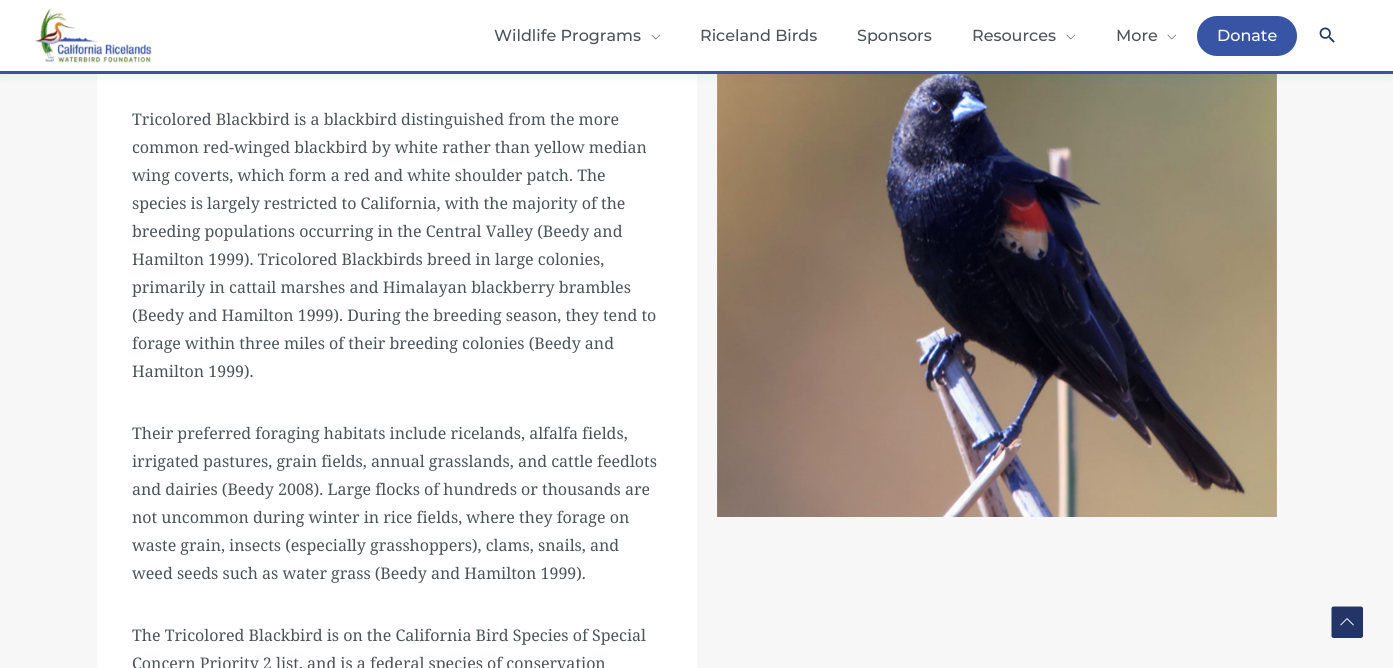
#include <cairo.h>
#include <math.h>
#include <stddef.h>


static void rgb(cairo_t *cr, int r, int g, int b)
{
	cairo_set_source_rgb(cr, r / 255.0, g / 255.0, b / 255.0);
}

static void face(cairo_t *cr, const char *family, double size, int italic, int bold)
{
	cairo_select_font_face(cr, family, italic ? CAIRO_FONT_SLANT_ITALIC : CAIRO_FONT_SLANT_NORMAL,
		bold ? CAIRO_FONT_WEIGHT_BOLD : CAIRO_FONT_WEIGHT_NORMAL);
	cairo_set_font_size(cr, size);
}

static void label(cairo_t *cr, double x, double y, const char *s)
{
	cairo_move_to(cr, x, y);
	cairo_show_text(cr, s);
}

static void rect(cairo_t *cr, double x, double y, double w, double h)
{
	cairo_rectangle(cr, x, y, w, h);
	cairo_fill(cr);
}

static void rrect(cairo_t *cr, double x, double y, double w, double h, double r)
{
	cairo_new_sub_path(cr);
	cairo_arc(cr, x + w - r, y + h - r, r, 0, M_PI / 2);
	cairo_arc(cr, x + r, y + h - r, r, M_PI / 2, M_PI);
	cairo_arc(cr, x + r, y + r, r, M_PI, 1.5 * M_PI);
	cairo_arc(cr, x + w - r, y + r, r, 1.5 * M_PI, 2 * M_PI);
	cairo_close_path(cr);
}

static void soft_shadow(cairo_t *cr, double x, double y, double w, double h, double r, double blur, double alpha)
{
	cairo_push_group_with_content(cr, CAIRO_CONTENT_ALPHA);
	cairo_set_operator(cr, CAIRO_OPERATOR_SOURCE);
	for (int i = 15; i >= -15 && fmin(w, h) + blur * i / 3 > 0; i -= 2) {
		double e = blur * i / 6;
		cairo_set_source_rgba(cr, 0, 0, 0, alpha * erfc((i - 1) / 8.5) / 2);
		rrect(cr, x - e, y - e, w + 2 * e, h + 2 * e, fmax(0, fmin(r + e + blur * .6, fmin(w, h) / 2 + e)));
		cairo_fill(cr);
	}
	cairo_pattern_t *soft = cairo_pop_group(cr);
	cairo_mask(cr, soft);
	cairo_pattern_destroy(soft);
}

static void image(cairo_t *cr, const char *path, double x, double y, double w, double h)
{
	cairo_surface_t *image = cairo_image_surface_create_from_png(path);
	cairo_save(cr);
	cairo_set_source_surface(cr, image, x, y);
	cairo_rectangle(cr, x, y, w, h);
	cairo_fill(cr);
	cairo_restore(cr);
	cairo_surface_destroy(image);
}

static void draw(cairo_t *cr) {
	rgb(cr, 247, 247, 247);
	cairo_paint(cr);
	rgb(cr, 255, 255, 255);
	rect(cr, 97, 74, 600, 594);
	image(cr, "image3.png", 717, 74, 560, 443);
	rgb(cr, 36, 50, 66);
	soft_shadow(cr, 0, 2, 1393, 74, 0, 5, 0.07);
	rgb(cr, 255, 255, 255);
	rect(cr, 0, 0, 1393, 71);
	rgb(cr, 56, 84, 164);
	rect(cr, 0, 71, 1393, 3);
	image(cr, "image0.png", 35, 8, 117, 55);
	face(cr, "Montserrat Medium", 16, 0, 0);
	rgb(cr, 76, 83, 87);
	label(cr, 494, 41, "Wildlife Programs");
	image(cr, "image1.png", 651, 34, 9, 6);
	label(cr, 700, 41, "Riceland Birds");
	label(cr, 857, 41, "Sponsors");
	label(cr, 972, 41, "Resources");
	image(cr, "image1.png", 1066, 34, 9, 6);
	label(cr, 1116, 41, "More");
	image(cr, "image1.png", 1167, 34, 9, 6);
	rgb(cr, 56, 84, 164);
	rrect(cr, 1197, 16, 100, 40, 20);
	cairo_fill(cr);
	rgb(cr, 255, 255, 255);
	label(cr, 1217, 41, "Donate");
	image(cr, "image2.png", 1319, 27, 16, 16);
	face(cr, "Noto Serif", 16, 0, 0);
	rgb(cr, 76, 83, 87);
	label(cr, 132, 125, "Tricolored Blackbird is a blackbird distinguished from the more");
	label(cr, 132, 153, "common red-winged blackbird by white rather than yellow median");
	label(cr, 132, 181, "wing coverts, which form a red and white shoulder patch. The");
	label(cr, 132, 209, "species is largely restricted to California, with the majority of the");
	label(cr, 132, 237, "breeding populations occurring in the Central Valley (Beedy and");
	label(cr, 132, 265, "Hamilton 1999). Tricolored Blackbirds breed in large colonies,");
	label(cr, 132, 293, "primarily in cattail marshes and Himalayan blackberry brambles");
	label(cr, 132, 321, "(Beedy and Hamilton 1999). During the breeding season, they tend to");
	label(cr, 132, 349, "forage within three miles of their breeding colonies (Beedy and");
	label(cr, 132, 377, "Hamilton 1999).");
	label(cr, 132, 439, "Their preferred foraging habitats include ricelands, alfalfa fields,");
	label(cr, 132, 467, "irrigated pastures, grain fields, annual grasslands, and cattle feedlots");
	label(cr, 132, 495, "and dairies (Beedy 2008). Large flocks of hundreds or thousands are");
	label(cr, 132, 523, "not uncommon during winter in rice fields, where they forage on");
	label(cr, 132, 551, "waste grain, insects (especially grasshoppers), clams, snails, and");
	label(cr, 132, 579, "weed seeds such as water grass (Beedy and Hamilton 1999).");
	label(cr, 132, 641, "The Tricolored Blackbird is on the California Bird Species of Special");
	label(cr, 132, 669, "Concern Priority 2 list, and is a federal species of conservation");
	rgb(cr, 35, 52, 102);
	cairo_new_path(cr);
	cairo_move_to(cr, 1361, 638);
	cairo_line_to(cr, 1333.5, 638);
	cairo_curve_to(cr, 1332.5, 638, 1331.5, 637, 1331.5, 636);
	cairo_line_to(cr, 1331.5, 608.5);
	cairo_curve_to(cr, 1331.5, 607.5, 1332.5, 606.5, 1333.5, 606.5);
	cairo_line_to(cr, 1361, 606.5);
	cairo_curve_to(cr, 1362, 606.5, 1363, 607.5, 1363, 608.5);
	cairo_line_to(cr, 1363, 636);
	cairo_curve_to(cr, 1363, 637, 1362, 638, 1361, 638);
	cairo_close_path(cr);
	cairo_fill(cr);
	image(cr, "image4.png", 1340, 618, 14, 8);
}

int main(void) {
	cairo_surface_t *surface = cairo_image_surface_create(CAIRO_FORMAT_RGB24, 1393, 668);
	cairo_t *cr = cairo_create(surface);
	cairo_font_options_t *options = cairo_font_options_create();
	cairo_font_options_set_hint_metrics(options, CAIRO_HINT_METRICS_OFF);
	cairo_font_options_set_hint_style(options, CAIRO_HINT_STYLE_NONE);
	cairo_set_font_options(cr, options);
	cairo_set_miter_limit(cr, 4);
	draw(cr);
	cairo_surface_write_to_png(surface, "render.png");
	cairo_font_options_destroy(options);
	cairo_destroy(cr);
	cairo_surface_destroy(surface);
	return 0;
}
